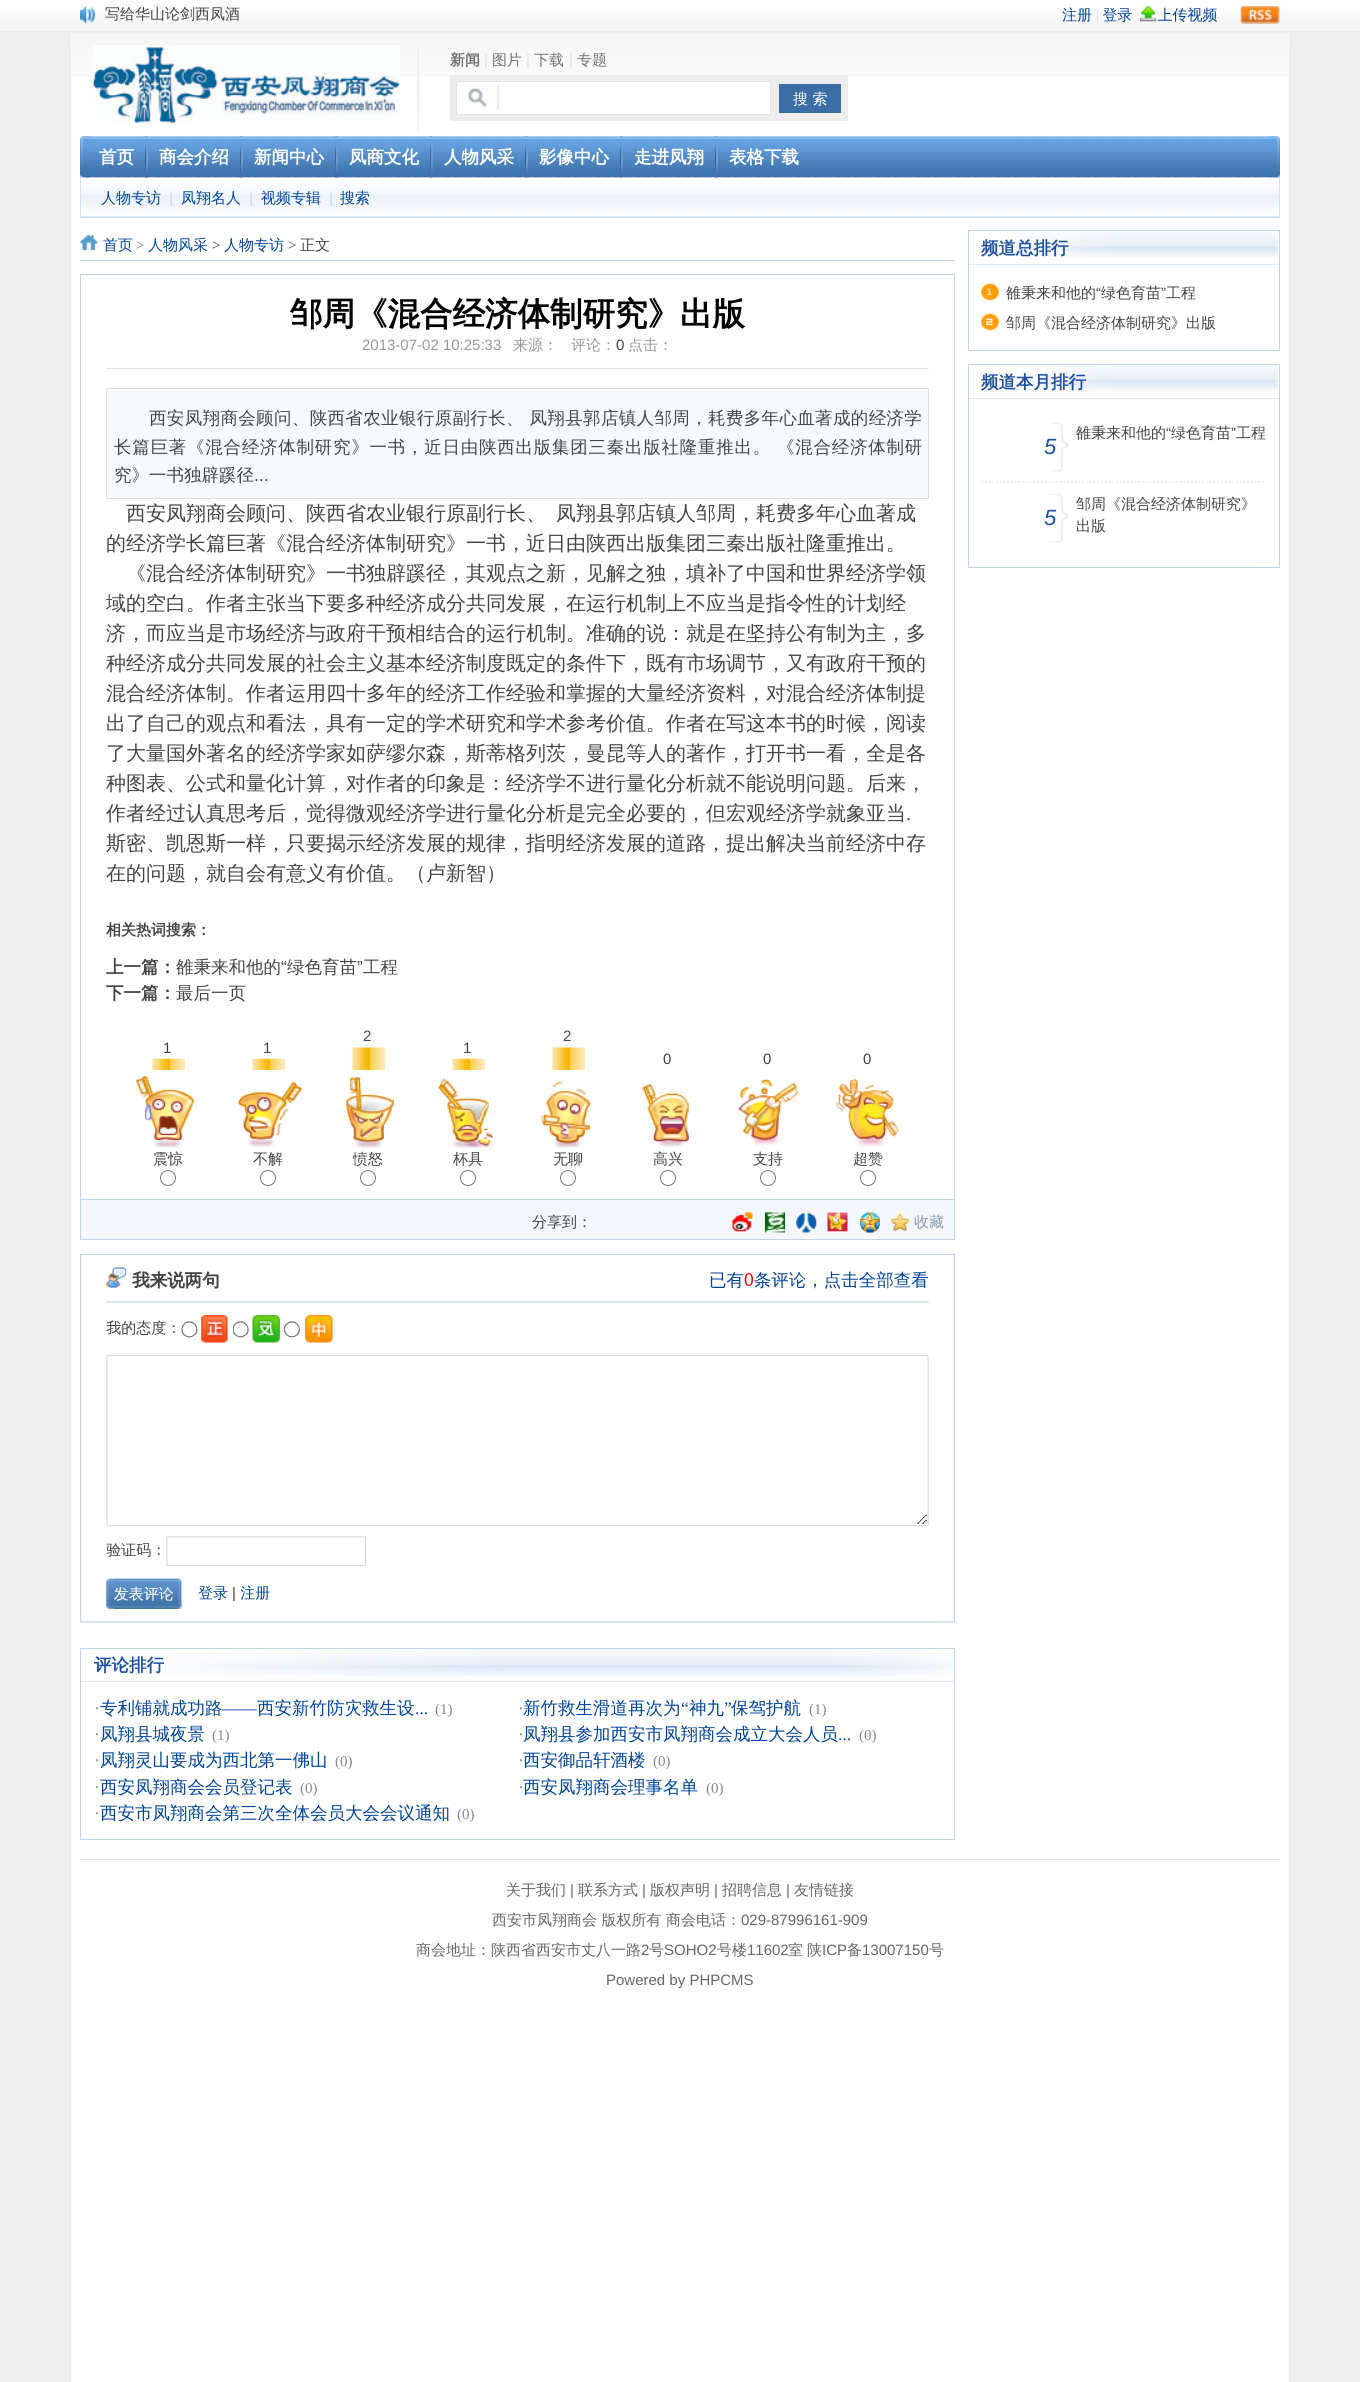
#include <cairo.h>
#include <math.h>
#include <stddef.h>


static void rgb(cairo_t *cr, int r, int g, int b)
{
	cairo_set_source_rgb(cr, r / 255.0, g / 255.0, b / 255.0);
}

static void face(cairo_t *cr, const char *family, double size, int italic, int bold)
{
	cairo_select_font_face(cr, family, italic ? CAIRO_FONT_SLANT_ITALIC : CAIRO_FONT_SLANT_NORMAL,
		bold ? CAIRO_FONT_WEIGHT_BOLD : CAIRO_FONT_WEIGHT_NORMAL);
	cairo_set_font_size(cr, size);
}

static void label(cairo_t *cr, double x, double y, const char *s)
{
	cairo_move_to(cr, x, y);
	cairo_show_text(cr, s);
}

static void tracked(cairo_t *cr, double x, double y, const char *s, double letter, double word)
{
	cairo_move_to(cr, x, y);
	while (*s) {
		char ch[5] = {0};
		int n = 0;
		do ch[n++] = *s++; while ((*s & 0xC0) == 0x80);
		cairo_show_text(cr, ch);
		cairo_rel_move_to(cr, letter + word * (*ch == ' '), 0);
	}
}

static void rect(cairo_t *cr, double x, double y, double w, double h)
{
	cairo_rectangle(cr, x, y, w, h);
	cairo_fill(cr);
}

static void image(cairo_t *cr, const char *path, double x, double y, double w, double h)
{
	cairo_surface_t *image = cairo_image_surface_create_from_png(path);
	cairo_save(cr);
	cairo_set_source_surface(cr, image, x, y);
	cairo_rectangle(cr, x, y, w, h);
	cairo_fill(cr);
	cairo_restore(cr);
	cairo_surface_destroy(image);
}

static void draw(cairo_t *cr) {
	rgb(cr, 238, 238, 238);
	cairo_paint(cr);
	rgb(cr, 255, 255, 255);
	rect(cr, 71, 33, 1218, 2349);
	image(cr, "image0.png", 0, 0, 1360, 32);
	image(cr, "image1.png", 80, 6, 16, 18);
	face(cr, "WenQuanYi Zen Hei Medium", 15, 0, 0);
	rgb(cr, 68, 68, 68);
	label(cr, 105, 19, "写给华山论剑西凤酒");
	image(cr, "image2.png", 1062, 6, 155, 17);
	image(cr, "image3.png", 1240, 6, 40, 18);
	image(cr, "image4.png", 71, 33, 1218, 44);
	image(cr, "image5.png", 417, 45, 3, 88);
	image(cr, "image6.png", 92, 45, 308, 80);
	face(cr, "WenQuanYi Zen Hei", 15, 0, 1);
	rgb(cr, 111, 113, 114);
	label(cr, 450, 65, "新闻");
	face(cr, "Liberation Sans", 15, 0, 0);
	rgb(cr, 221, 221, 221);
	label(cr, 484, 65, "|");
	face(cr, "WenQuanYi Zen Hei Medium", 15, 0, 0);
	rgb(cr, 111, 113, 114);
	label(cr, 492, 65, "图片");
	face(cr, "Liberation Sans", 15, 0, 0);
	rgb(cr, 221, 221, 221);
	label(cr, 526, 65, "|");
	face(cr, "WenQuanYi Zen Hei Medium", 15, 0, 0);
	rgb(cr, 111, 113, 114);
	label(cr, 534, 65, "下载");
	face(cr, "Liberation Sans", 15, 0, 0);
	rgb(cr, 221, 221, 221);
	label(cr, 569, 65, "|");
	face(cr, "WenQuanYi Zen Hei Medium", 15, 0, 0);
	rgb(cr, 111, 113, 114);
	label(cr, 577, 65, "专题");
	rgb(cr, 237, 237, 237);
	rect(cr, 450, 75, 398, 46);
	rgb(cr, 255, 255, 255);
	rect(cr, 457, 82, 313, 32);
	image(cr, "image7.png", 468, 85, 31, 25);
	cairo_rectangle(cr, 456.5, 81.5, 314, 33);
	rgb(cr, 229, 229, 231);
	cairo_set_line_width(cr, 1);
	cairo_stroke(cr);
	rgb(cr, 58, 110, 165);
	rect(cr, 779, 84, 62, 29);
	rgb(cr, 255, 255, 255);
	label(cr, 793, 104, "搜 索");
	image(cr, "image8.png", 80, 136, 10, 42);
	image(cr, "image9.png", 1270, 136, 10, 42);
	image(cr, "image10.png", 86, 136, 1188, 42);
	face(cr, "WenQuanYi Zen Hei", 17.5, 0, 1);
	label(cr, 99, 163, "首页");
	image(cr, "image15.png", 80, 177, 1200, 41);
	image(cr, "image11.png", 144, 136, 4, 42);
	label(cr, 159, 163, "商会介绍");
	image(cr, "image12.png", 240, 136, 3, 42);
	label(cr, 254, 163, "新闻中心");
	image(cr, "image13.png", 334, 136, 4, 42);
	label(cr, 349, 163, "凤商文化");
	image(cr, "image12.png", 430, 136, 3, 42);
	label(cr, 444, 163, "人物风采");
	image(cr, "image14.png", 524, 136, 4, 42);
	label(cr, 539, 163, "影像中心");
	image(cr, "image12.png", 620, 136, 3, 42);
	label(cr, 634, 163, "走进凤翔");
	image(cr, "image14.png", 714, 136, 4, 42);
	label(cr, 729, 163, "表格下载");
	rgb(cr, 210, 223, 237);
	rect(cr, 1279, 178, 1, 40);
	rect(cr, 80, 178, 1, 40);
	face(cr, "WenQuanYi Zen Hei Medium", 15, 0, 0);
	rgb(cr, 0, 68, 153);
	label(cr, 101, 203, "人物专访");
	face(cr, "Liberation Sans", 15, 0, 0);
	rgb(cr, 200, 216, 233);
	label(cr, 169, 203, "|");
	face(cr, "WenQuanYi Zen Hei Medium", 15, 0, 0);
	rgb(cr, 0, 68, 153);
	label(cr, 181, 203, "凤翔名人");
	face(cr, "Liberation Sans", 15, 0, 0);
	rgb(cr, 200, 216, 233);
	label(cr, 249, 203, "|");
	face(cr, "WenQuanYi Zen Hei Medium", 15, 0, 0);
	rgb(cr, 0, 68, 153);
	label(cr, 261, 203, "视频专辑");
	face(cr, "Liberation Sans", 15, 0, 0);
	rgb(cr, 200, 216, 233);
	label(cr, 329, 203, "|");
	face(cr, "WenQuanYi Zen Hei Medium", 15, 0, 0);
	rgb(cr, 0, 68, 153);
	label(cr, 340, 203, "搜索");
	image(cr, "image16.png", 80, 234, 18, 17);
	rgb(cr, 195, 212, 231);
	rect(cr, 80, 260, 875, 1);
	rgb(cr, 0, 68, 153);
	label(cr, 103, 250, "首页");
	face(cr, "Liberation Serif", 15, 0, 0);
	rgb(cr, 126, 126, 126);
	label(cr, 136, 250, ">");
	face(cr, "WenQuanYi Zen Hei Medium", 15, 0, 0);
	rgb(cr, 0, 68, 153);
	label(cr, 148, 250, "人物风采");
	face(cr, "Liberation Serif", 15, 0, 0);
	rgb(cr, 68, 68, 68);
	label(cr, 212, 250, ">");
	face(cr, "WenQuanYi Zen Hei Medium", 15, 0, 0);
	rgb(cr, 0, 68, 153);
	label(cr, 224, 250, "人物专访");
	face(cr, "Liberation Serif", 15, 0, 0);
	rgb(cr, 68, 68, 68);
	label(cr, 288, 250, ">");
	face(cr, "WenQuanYi Zen Hei Medium", 15, 0, 0);
	label(cr, 300, 250, "正文");
	cairo_rectangle(cr, 80.5, 274.5, 874, 925);
	rgb(cr, 195, 212, 231);
	cairo_stroke(cr);
	rgb(cr, 229, 229, 229);
	rect(cr, 106, 368, 823, 1);
	face(cr, "WenQuanYi Zen Hei", 32.5, 0, 1);
	rgb(cr, 0, 0, 0);
	label(cr, 290, 325, "邹周《混合经济体制研究》出版");
	face(cr, "Liberation Sans", 15, 0, 0);
	rgb(cr, 153, 153, 153);
	label(cr, 362, 350, "2013-07-02 10:25:33");
	face(cr, "WenQuanYi Zen Hei Medium", 15, 0, 0);
	label(cr, 513, 350, "来源：");
	label(cr, 571, 350, "评论：");
	face(cr, "Liberation Sans", 15, 0, 0);
	rgb(cr, 68, 68, 68);
	label(cr, 616, 350, "0");
	face(cr, "WenQuanYi Zen Hei Medium", 15, 0, 0);
	rgb(cr, 153, 153, 153);
	label(cr, 628, 350, "点击：");
	rgb(cr, 246, 250, 253);
	cairo_rectangle(cr, 106.5, 388.5, 822, 110);
	cairo_fill_preserve(cr);
	rgb(cr, 220, 221, 221);
	cairo_stroke(cr);
	face(cr, "WenQuanYi Zen Hei Medium", 17.5, 0, 0);
	rgb(cr, 68, 68, 68);
	tracked(cr, 149, 424, "西安凤翔商会顾问、陕西省农业银行原副行长、 凤翔县郭店镇人邹周，耗费多年心血著成的经济学", 0.35, 0);
	tracked(cr, 114, 453, "长篇巨著《混合经济体制研究》一书，近日由陕西出版集团三秦出版社隆重推出。 《混合经济体制研", 0.75, 0);
	label(cr, 114, 481, "究》一书独辟蹊径");
	face(cr, "Liberation Sans", 17.5, 0, 0);
	label(cr, 254, 481, "...");
	face(cr, "WenQuanYi Zen Hei Medium", 20, 0, 0);
	label(cr, 126, 520, "西安凤翔商会顾问、陕西省农业银行原副行长、");
	label(cr, 556, 520, "凤翔县郭店镇人邹周，耗费多年心血著成");
	label(cr, 106, 550, "的经济学长篇巨著《混合经济体制研究》一书，近日由陕西出版集团三秦出版社隆重推出。");
	label(cr, 126, 580, "《混合经济体制研究》一书独辟蹊径，其观点之新，见解之独，填补了中国和世界经济学领");
	label(cr, 106, 610, "域的空白。作者主张当下要多种经济成分共同发展，在运行机制上不应当是指令性的计划经");
	label(cr, 106, 640, "济，而应当是市场经济与政府干预相结合的运行机制。准确的说：就是在坚持公有制为主，多");
	label(cr, 106, 670, "种经济成分共同发展的社会主义基本经济制度既定的条件下，既有市场调节，又有政府干预的");
	label(cr, 106, 700, "混合经济体制。作者运用四十多年的经济工作经验和掌握的大量经济资料，对混合经济体制提");
	label(cr, 106, 730, "出了自己的观点和看法，具有一定的学术研究和学术参考价值。作者在写这本书的时候，阅读");
	label(cr, 106, 760, "了大量国外著名的经济学家如萨缪尔森，斯蒂格列茨，曼昆等人的著作，打开书一看，全是各");
	label(cr, 106, 790, "种图表、公式和量化计算，对作者的印象是：经济学不进行量化分析就不能说明问题。后来，");
	label(cr, 106, 820, "作者经过认真思考后，觉得微观经济学进行量化分析是完全必要的，但宏观经济学就象亚当");
	face(cr, "Liberation Serif", 20, 0, 0);
	label(cr, 906, 820, ".");
	face(cr, "WenQuanYi Zen Hei Medium", 20, 0, 0);
	label(cr, 106, 850, "斯密、凯恩斯一样，只要揭示经济发展的规律，指明经济发展的道路，提出解决当前经济中存");
	label(cr, 106, 880, "在的问题，就自会有意义有价值。（卢新智）");
	face(cr, "WenQuanYi Zen Hei", 15, 0, 1);
	label(cr, 106, 935, "相关热词搜索：");
	face(cr, "WenQuanYi Zen Hei", 17.5, 0, 1);
	label(cr, 106, 973, "上一篇：");
	face(cr, "WenQuanYi Zen Hei Medium", 17.5, 0, 0);
	label(cr, 176, 973, "雒秉来和他的");
	face(cr, "Liberation Sans", 17.5, 0, 0);
	label(cr, 281, 973, "“");
	face(cr, "WenQuanYi Zen Hei Medium", 17.5, 0, 0);
	label(cr, 287, 973, "绿色育苗");
	face(cr, "Liberation Sans", 17.5, 0, 0);
	label(cr, 357, 973, "”");
	face(cr, "WenQuanYi Zen Hei Medium", 17.5, 0, 0);
	label(cr, 363, 973, "工程");
	face(cr, "WenQuanYi Zen Hei", 17.5, 0, 1);
	label(cr, 106, 999, "下一篇：");
	face(cr, "WenQuanYi Zen Hei Medium", 17.5, 0, 0);
	label(cr, 176, 999, "最后一页");
	face(cr, "Liberation Sans", 15, 0, 0);
	label(cr, 163, 1053, "1");
	image(cr, "image17.png", 152, 1058, 34, 12);
	image(cr, "image18.png", 135, 1076, 59, 72);
	face(cr, "WenQuanYi Zen Hei Medium", 15, 0, 0);
	label(cr, 153, 1164, "震惊");
	cairo_new_path(cr);
	cairo_arc(cr, 168, 1178, 7.5, 0, 2 * M_PI);
	rgb(cr, 118, 118, 118);
	cairo_stroke(cr);
	face(cr, "Liberation Sans", 15, 0, 0);
	rgb(cr, 68, 68, 68);
	label(cr, 263, 1053, "1");
	image(cr, "image17.png", 252, 1058, 34, 12);
	image(cr, "image19.png", 238, 1081, 65, 67);
	face(cr, "WenQuanYi Zen Hei Medium", 15, 0, 0);
	label(cr, 253, 1164, "不解");
	cairo_new_path(cr);
	cairo_arc(cr, 268, 1178, 7.5, 0, 2 * M_PI);
	rgb(cr, 118, 118, 118);
	cairo_stroke(cr);
	face(cr, "Liberation Sans", 15, 0, 0);
	rgb(cr, 68, 68, 68);
	label(cr, 363, 1041, "2");
	image(cr, "image20.png", 352, 1047, 34, 23);
	image(cr, "image21.png", 346, 1077, 48, 71);
	face(cr, "WenQuanYi Zen Hei Medium", 15, 0, 0);
	label(cr, 353, 1164, "愤怒");
	cairo_new_path(cr);
	cairo_arc(cr, 368, 1178, 7.5, 0, 2 * M_PI);
	rgb(cr, 118, 118, 118);
	cairo_stroke(cr);
	face(cr, "Liberation Sans", 15, 0, 0);
	rgb(cr, 68, 68, 68);
	label(cr, 463, 1053, "1");
	image(cr, "image17.png", 452, 1058, 34, 12);
	image(cr, "image22.png", 437, 1078, 56, 70);
	face(cr, "WenQuanYi Zen Hei Medium", 15, 0, 0);
	label(cr, 453, 1164, "杯具");
	cairo_new_path(cr);
	cairo_arc(cr, 468, 1178, 7.5, 0, 2 * M_PI);
	rgb(cr, 118, 118, 118);
	cairo_stroke(cr);
	face(cr, "Liberation Sans", 15, 0, 0);
	rgb(cr, 68, 68, 68);
	label(cr, 563, 1041, "2");
	image(cr, "image20.png", 552, 1047, 34, 23);
	image(cr, "image23.png", 540, 1081, 51, 67);
	face(cr, "WenQuanYi Zen Hei Medium", 15, 0, 0);
	label(cr, 553, 1164, "无聊");
	cairo_new_path(cr);
	cairo_arc(cr, 568, 1178, 7.5, 0, 2 * M_PI);
	rgb(cr, 118, 118, 118);
	cairo_stroke(cr);
	face(cr, "Liberation Sans", 15, 0, 0);
	rgb(cr, 68, 68, 68);
	label(cr, 663, 1064, "0");
	image(cr, "image24.png", 642, 1083, 47, 65);
	face(cr, "WenQuanYi Zen Hei Medium", 15, 0, 0);
	label(cr, 653, 1164, "高兴");
	cairo_new_path(cr);
	cairo_arc(cr, 668, 1178, 7.5, 0, 2 * M_PI);
	rgb(cr, 118, 118, 118);
	cairo_stroke(cr);
	face(cr, "Liberation Sans", 15, 0, 0);
	rgb(cr, 68, 68, 68);
	label(cr, 763, 1064, "0");
	image(cr, "image25.png", 737, 1078, 62, 68);
	face(cr, "WenQuanYi Zen Hei Medium", 15, 0, 0);
	label(cr, 753, 1164, "支持");
	cairo_new_path(cr);
	cairo_arc(cr, 768, 1178, 7.5, 0, 2 * M_PI);
	rgb(cr, 118, 118, 118);
	cairo_stroke(cr);
	face(cr, "Liberation Sans", 15, 0, 0);
	rgb(cr, 68, 68, 68);
	label(cr, 863, 1064, "0");
	image(cr, "image26.png", 836, 1078, 63, 69);
	face(cr, "WenQuanYi Zen Hei Medium", 15, 0, 0);
	label(cr, 853, 1164, "超赞");
	cairo_new_path(cr);
	cairo_arc(cr, 868, 1178, 7.5, 0, 2 * M_PI);
	rgb(cr, 118, 118, 118);
	cairo_stroke(cr);
	rgb(cr, 244, 248, 253);
	cairo_rectangle(cr, 80.5, 1199.5, 874, 40);
	cairo_fill_preserve(cr);
	rgb(cr, 195, 212, 231);
	cairo_stroke(cr);
	rgb(cr, 68, 68, 68);
	label(cr, 532, 1227, "分享到：");
	image(cr, "image27.png", 732, 1212, 21, 20);
	image(cr, "image28.png", 765, 1212, 20, 21);
	image(cr, "image29.png", 796, 1212, 21, 21);
	image(cr, "image30.png", 827, 1212, 21, 20);
	image(cr, "image31.png", 860, 1212, 20, 21);
	image(cr, "image32.png", 891, 1212, 20, 20);
	rgb(cr, 136, 150, 177);
	label(cr, 914, 1227, "收藏");
	image(cr, "image33.png", 80, 1253, 875, 370);
	cairo_rectangle(cr, 80.5, 1648.5, 874, 191);
	rgb(cr, 195, 212, 231);
	cairo_stroke(cr);
	image(cr, "image34.png", 159, 1649, 794, 28);
	rgb(cr, 220, 231, 243);
	rect(cr, 81, 1681, 873, 1);
	face(cr, "WenQuanYi Zen Hei", 17.5, 0, 1);
	rgb(cr, 30, 80, 162);
	label(cr, 94, 1671, "评论排行");
	face(cr, "Liberation Serif", 17.5, 0, 0);
	rgb(cr, 136, 136, 136);
	label(cr, 94, 1714, "·");
	face(cr, "WenQuanYi Zen Hei Medium", 17.5, 0, 0);
	rgb(cr, 0, 68, 153);
	label(cr, 100, 1714, "专利铺就成功路");
	face(cr, "Liberation Serif", 17.5, 0, 0);
	label(cr, 222, 1714, "——");
	face(cr, "WenQuanYi Zen Hei Medium", 17.5, 0, 0);
	label(cr, 257, 1714, "西安新竹防灾救生设");
	face(cr, "Liberation Serif", 15, 0, 0);
	rgb(cr, 136, 136, 136);
	label(cr, 435, 1714, "(1)");
	face(cr, "Liberation Serif", 17.5, 0, 0);
	rgb(cr, 0, 68, 153);
	label(cr, 415, 1714, "...");
	rgb(cr, 136, 136, 136);
	label(cr, 518, 1714, "·");
	face(cr, "WenQuanYi Zen Hei Medium", 17.5, 0, 0);
	rgb(cr, 0, 68, 153);
	label(cr, 523, 1714, "新竹救生滑道再次为");
	face(cr, "Liberation Serif", 17.5, 0, 0);
	label(cr, 681, 1714, "“");
	face(cr, "WenQuanYi Zen Hei Medium", 17.5, 0, 0);
	label(cr, 689, 1714, "神九");
	face(cr, "Liberation Serif", 17.5, 0, 0);
	label(cr, 724, 1714, "”");
	face(cr, "WenQuanYi Zen Hei Medium", 17.5, 0, 0);
	label(cr, 731, 1714, "保驾护航");
	face(cr, "Liberation Serif", 15, 0, 0);
	rgb(cr, 136, 136, 136);
	label(cr, 809, 1714, "(1)");
	face(cr, "Liberation Serif", 17.5, 0, 0);
	label(cr, 94, 1740, "·");
	face(cr, "WenQuanYi Zen Hei Medium", 17.5, 0, 0);
	rgb(cr, 0, 68, 153);
	label(cr, 100, 1740, "凤翔县城夜景");
	face(cr, "Liberation Serif", 15, 0, 0);
	rgb(cr, 136, 136, 136);
	label(cr, 212, 1740, "(1)");
	face(cr, "Liberation Serif", 17.5, 0, 0);
	label(cr, 518, 1740, "·");
	face(cr, "WenQuanYi Zen Hei Medium", 17.5, 0, 0);
	rgb(cr, 0, 68, 153);
	label(cr, 523, 1740, "凤翔县参加西安市凤翔商会成立大会人员");
	face(cr, "Liberation Serif", 15, 0, 0);
	rgb(cr, 136, 136, 136);
	label(cr, 859, 1740, "(0)");
	face(cr, "Liberation Serif", 17.5, 0, 0);
	rgb(cr, 0, 68, 153);
	label(cr, 838, 1740, "...");
	rgb(cr, 136, 136, 136);
	label(cr, 94, 1766, "·");
	face(cr, "WenQuanYi Zen Hei Medium", 17.5, 0, 0);
	rgb(cr, 0, 68, 153);
	label(cr, 100, 1766, "凤翔灵山要成为西北第一佛山");
	face(cr, "Liberation Serif", 15, 0, 0);
	rgb(cr, 136, 136, 136);
	label(cr, 335, 1766, "(0)");
	face(cr, "Liberation Serif", 17.5, 0, 0);
	label(cr, 518, 1766, "·");
	face(cr, "WenQuanYi Zen Hei Medium", 17.5, 0, 0);
	rgb(cr, 0, 68, 153);
	label(cr, 523, 1766, "西安御品轩酒楼");
	face(cr, "Liberation Serif", 15, 0, 0);
	rgb(cr, 136, 136, 136);
	label(cr, 653, 1766, "(0)");
	face(cr, "Liberation Serif", 17.5, 0, 0);
	label(cr, 94, 1793, "·");
	face(cr, "WenQuanYi Zen Hei Medium", 17.5, 0, 0);
	rgb(cr, 0, 68, 153);
	label(cr, 100, 1793, "西安凤翔商会会员登记表");
	face(cr, "Liberation Serif", 15, 0, 0);
	rgb(cr, 136, 136, 136);
	label(cr, 300, 1793, "(0)");
	face(cr, "Liberation Serif", 17.5, 0, 0);
	label(cr, 518, 1793, "·");
	face(cr, "WenQuanYi Zen Hei Medium", 17.5, 0, 0);
	rgb(cr, 0, 68, 153);
	label(cr, 523, 1793, "西安凤翔商会理事名单");
	face(cr, "Liberation Serif", 15, 0, 0);
	rgb(cr, 136, 136, 136);
	label(cr, 706, 1793, "(0)");
	face(cr, "Liberation Serif", 17.5, 0, 0);
	label(cr, 94, 1819, "·");
	face(cr, "WenQuanYi Zen Hei Medium", 17.5, 0, 0);
	rgb(cr, 0, 68, 153);
	label(cr, 100, 1819, "西安市凤翔商会第三次全体会员大会会议通知");
	face(cr, "Liberation Serif", 15, 0, 0);
	rgb(cr, 136, 136, 136);
	label(cr, 457, 1819, "(0)");
	cairo_rectangle(cr, 968.5, 230.5, 311, 120);
	rgb(cr, 195, 212, 231);
	cairo_stroke(cr);
	image(cr, "image35.png", 1011, 231, 267, 28);
	rgb(cr, 220, 231, 243);
	rect(cr, 969, 264, 310, 1);
	face(cr, "WenQuanYi Zen Hei", 17.5, 0, 1);
	rgb(cr, 30, 80, 162);
	label(cr, 981, 254, "频道总排行");
	image(cr, "image36.png", 981, 283, 18, 48);
	face(cr, "WenQuanYi Zen Hei Medium", 15, 0, 0);
	rgb(cr, 68, 68, 68);
	label(cr, 1006, 298, "雒秉来和他的");
	face(cr, "Liberation Sans", 15, 0, 0);
	label(cr, 1096, 298, "“");
	face(cr, "WenQuanYi Zen Hei Medium", 15, 0, 0);
	label(cr, 1101, 298, "绿色育苗");
	face(cr, "Liberation Sans", 15, 0, 0);
	label(cr, 1161, 298, "”");
	face(cr, "WenQuanYi Zen Hei Medium", 15, 0, 0);
	label(cr, 1166, 298, "工程");
	label(cr, 1006, 328, "邹周《混合经济体制研究》出版");
	cairo_rectangle(cr, 968.5, 364.5, 311, 203);
	rgb(cr, 195, 212, 231);
	cairo_stroke(cr);
	image(cr, "image37.png", 1011, 365, 267, 27);
	rgb(cr, 220, 231, 243);
	rect(cr, 969, 398, 310, 1);
	face(cr, "WenQuanYi Zen Hei", 17.5, 0, 1);
	rgb(cr, 30, 80, 162);
	label(cr, 981, 388, "频道本月排行");
	image(cr, "image38.png", 982, 411, 282, 1);
	face(cr, "WenQuanYi Zen Hei Medium", 15, 0, 0);
	rgb(cr, 68, 68, 68);
	label(cr, 1076, 438, "雒秉来和他的");
	face(cr, "Liberation Sans", 15, 0, 0);
	label(cr, 1166, 438, "“");
	face(cr, "WenQuanYi Zen Hei Medium", 15, 0, 0);
	label(cr, 1171, 438, "绿色育苗");
	face(cr, "Liberation Sans", 15, 0, 0);
	label(cr, 1231, 438, "”");
	face(cr, "WenQuanYi Zen Hei Medium", 15, 0, 0);
	label(cr, 1236, 438, "工程");
	image(cr, "image39.png", 1049, 422, 20, 50);
	face(cr, "Liberation Sans", 22, 1, 0);
	rgb(cr, 30, 80, 162);
	label(cr, 1044, 454, "5");
	image(cr, "image40.png", 981, 481, 286, 2);
	image(cr, "image41.png", 1048, 493, 21, 50);
	label(cr, 1044, 525, "5");
	face(cr, "WenQuanYi Zen Hei Medium", 15, 0, 0);
	rgb(cr, 68, 68, 68);
	label(cr, 1076, 509, "邹周《混合经济体制研究》");
	label(cr, 1076, 531, "出版");
	rgb(cr, 219, 231, 237);
	rect(cr, 80, 1859, 1200, 1);
	rgb(cr, 102, 102, 102);
	label(cr, 506, 1895, "关于我们");
	face(cr, "Liberation Sans", 15, 0, 0);
	label(cr, 570, 1895, "|");
	face(cr, "WenQuanYi Zen Hei Medium", 15, 0, 0);
	label(cr, 578, 1895, "联系方式");
	face(cr, "Liberation Sans", 15, 0, 0);
	label(cr, 642, 1895, "|");
	face(cr, "WenQuanYi Zen Hei Medium", 15, 0, 0);
	label(cr, 650, 1895, "版权声明");
	face(cr, "Liberation Sans", 15, 0, 0);
	label(cr, 714, 1895, "|");
	face(cr, "WenQuanYi Zen Hei Medium", 15, 0, 0);
	label(cr, 722, 1895, "招聘信息");
	face(cr, "Liberation Sans", 15, 0, 0);
	label(cr, 786, 1895, "|");
	face(cr, "WenQuanYi Zen Hei Medium", 15, 0, 0);
	label(cr, 794, 1895, "友情链接");
	label(cr, 492, 1925, "西安市凤翔商会 版权所有 商会电话：");
	face(cr, "Liberation Sans", 15, 0, 0);
	label(cr, 741, 1925, "029-87996161-909");
	face(cr, "WenQuanYi Zen Hei Medium", 15, 0, 0);
	label(cr, 416, 1955, "商会地址：陕西省西安市丈八一路");
	face(cr, "Liberation Sans", 15, 0, 0);
	label(cr, 641, 1955, "2");
	face(cr, "WenQuanYi Zen Hei Medium", 15, 0, 0);
	label(cr, 649, 1955, "号");
	face(cr, "Liberation Sans", 15, 0, 0);
	label(cr, 664, 1955, "SOHO2");
	face(cr, "WenQuanYi Zen Hei Medium", 15, 0, 0);
	label(cr, 717, 1955, "号楼");
	face(cr, "Liberation Sans", 15, 0, 0);
	label(cr, 747, 1955, "11602");
	face(cr, "WenQuanYi Zen Hei Medium", 15, 0, 0);
	label(cr, 788, 1955, "室");
	label(cr, 807, 1955, "陕");
	face(cr, "Liberation Sans", 15, 0, 0);
	label(cr, 822, 1955, "ICP");
	face(cr, "WenQuanYi Zen Hei Medium", 15, 0, 0);
	label(cr, 847, 1955, "备");
	face(cr, "Liberation Sans", 15, 0, 0);
	label(cr, 862, 1955, "13007150");
	face(cr, "WenQuanYi Zen Hei Medium", 15, 0, 0);
	label(cr, 929, 1955, "号");
	face(cr, "Liberation Sans", 15, 0, 0);
	label(cr, 606, 1985, "Powered by PHPCMS");
}

int main(void) {
	cairo_surface_t *surface = cairo_image_surface_create(CAIRO_FORMAT_RGB24, 1360, 2382);
	cairo_t *cr = cairo_create(surface);
	cairo_font_options_t *options = cairo_font_options_create();
	cairo_font_options_set_hint_metrics(options, CAIRO_HINT_METRICS_OFF);
	cairo_font_options_set_hint_style(options, CAIRO_HINT_STYLE_NONE);
	cairo_set_font_options(cr, options);
	cairo_set_miter_limit(cr, 4);
	draw(cr);
	cairo_surface_write_to_png(surface, "render.png");
	cairo_font_options_destroy(options);
	cairo_destroy(cr);
	cairo_surface_destroy(surface);
	return 0;
}
